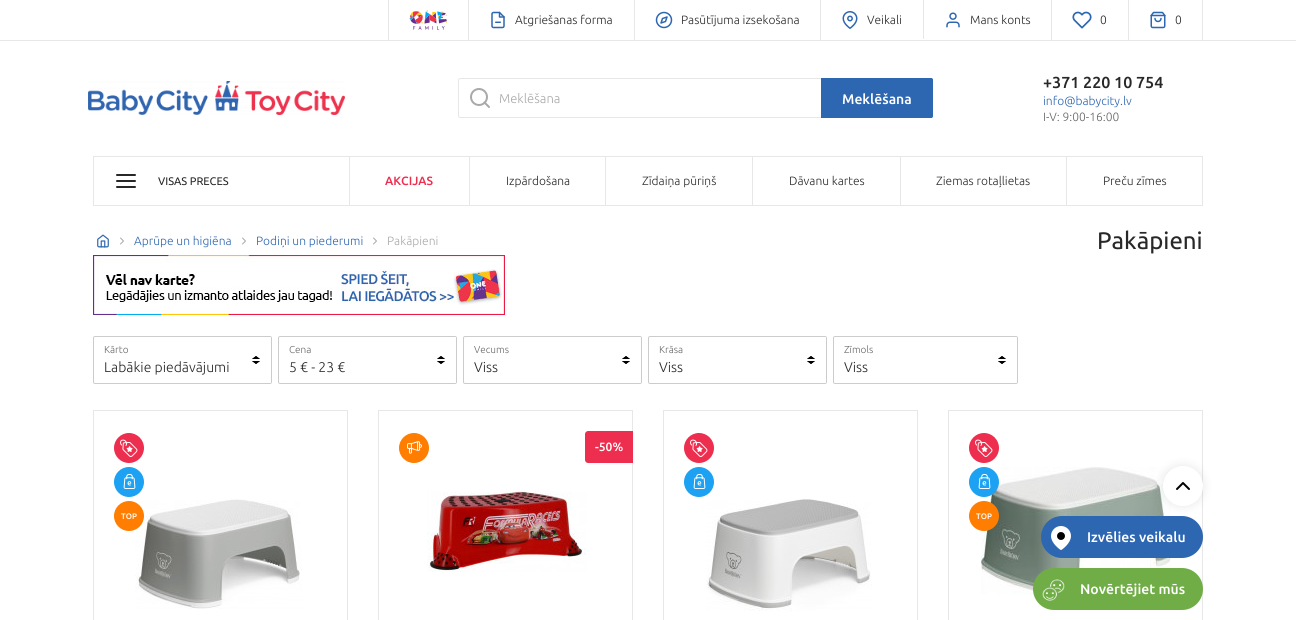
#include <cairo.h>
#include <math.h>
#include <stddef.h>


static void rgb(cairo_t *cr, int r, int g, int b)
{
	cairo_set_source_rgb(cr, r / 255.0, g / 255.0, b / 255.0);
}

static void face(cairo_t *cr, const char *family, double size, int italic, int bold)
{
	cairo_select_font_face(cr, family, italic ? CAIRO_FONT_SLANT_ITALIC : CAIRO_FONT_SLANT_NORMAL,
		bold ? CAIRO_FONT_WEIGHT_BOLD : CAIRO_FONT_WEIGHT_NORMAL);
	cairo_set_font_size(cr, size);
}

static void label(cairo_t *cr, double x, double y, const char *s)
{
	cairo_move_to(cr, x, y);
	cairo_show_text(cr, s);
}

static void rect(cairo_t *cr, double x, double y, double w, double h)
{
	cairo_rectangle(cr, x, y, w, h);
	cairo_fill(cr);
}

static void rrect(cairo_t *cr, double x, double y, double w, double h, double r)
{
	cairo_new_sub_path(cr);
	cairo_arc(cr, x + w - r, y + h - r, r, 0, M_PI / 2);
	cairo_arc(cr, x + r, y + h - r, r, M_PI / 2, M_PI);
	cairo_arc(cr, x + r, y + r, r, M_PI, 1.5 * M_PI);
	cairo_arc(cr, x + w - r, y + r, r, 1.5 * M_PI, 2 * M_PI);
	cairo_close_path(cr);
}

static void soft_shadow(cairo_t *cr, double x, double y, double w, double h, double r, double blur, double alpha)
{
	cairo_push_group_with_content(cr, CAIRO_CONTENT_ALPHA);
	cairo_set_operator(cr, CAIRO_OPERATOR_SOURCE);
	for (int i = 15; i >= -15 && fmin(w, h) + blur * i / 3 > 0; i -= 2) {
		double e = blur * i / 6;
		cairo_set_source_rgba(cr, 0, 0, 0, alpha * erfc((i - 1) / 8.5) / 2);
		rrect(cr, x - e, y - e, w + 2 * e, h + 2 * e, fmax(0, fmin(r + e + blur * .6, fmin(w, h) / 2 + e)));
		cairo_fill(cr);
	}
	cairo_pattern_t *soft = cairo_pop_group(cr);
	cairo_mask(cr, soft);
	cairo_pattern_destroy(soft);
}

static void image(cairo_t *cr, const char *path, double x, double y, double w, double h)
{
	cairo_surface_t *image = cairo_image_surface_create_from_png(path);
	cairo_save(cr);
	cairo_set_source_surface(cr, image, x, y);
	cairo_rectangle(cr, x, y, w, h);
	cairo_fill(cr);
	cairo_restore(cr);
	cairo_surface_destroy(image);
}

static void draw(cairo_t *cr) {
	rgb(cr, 255, 255, 255);
	cairo_paint(cr);
	rgb(cr, 231, 231, 231);
	rect(cr, 0, 40, 1296, 1);
	rect(cr, 388, 0, 1, 40);
	image(cr, "image0.png", 409, 10, 38, 20);
	rect(cr, 468, 0, 1, 40);
	image(cr, "image1.png", 491, 11, 14, 18);
	face(cr, "Ubuntu Light", 12, 0, 0);
	rgb(cr, 40, 40, 40);
	label(cr, 515, 24, "Atgriešanas forma");
	rgb(cr, 231, 231, 231);
	rect(cr, 634, 0, 1, 40);
	cairo_new_path(cr);
	cairo_arc(cr, 664, 20, 7.5, 0, 2 * M_PI);
	rgb(cr, 45, 102, 177);
	cairo_set_line_width(cr, 1.5);
	cairo_stroke(cr);
	cairo_new_path(cr);
	cairo_move_to(cr, 667, 17);
	cairo_line_to(cr, 665.5, 21.5);
	cairo_line_to(cr, 661, 23);
	cairo_line_to(cr, 662.5, 18.5);
	cairo_close_path(cr);
	cairo_set_line_cap(cr, CAIRO_LINE_CAP_ROUND);
	cairo_set_line_join(cr, CAIRO_LINE_JOIN_ROUND);
	cairo_stroke(cr);
	rgb(cr, 40, 40, 40);
	label(cr, 681, 24, "Pasūtījuma izsekošana");
	rgb(cr, 231, 231, 231);
	rect(cr, 820, 0, 1, 40);
	image(cr, "image2.png", 842, 11, 16, 18);
	rgb(cr, 40, 40, 40);
	label(cr, 867, 24, "Veikali");
	rgb(cr, 231, 231, 231);
	rect(cr, 923, 0, 1, 39);
	image(cr, "image3.png", 946, 12, 14, 16);
	rgb(cr, 40, 40, 40);
	label(cr, 970, 24, "Mans konts");
	rgb(cr, 231, 231, 231);
	rect(cr, 1051, 0, 1, 40);
	image(cr, "image4.png", 1072, 11, 20, 18);
	rgb(cr, 40, 40, 40);
	label(cr, 1100, 24, "0");
	rgb(cr, 231, 231, 231);
	rect(cr, 1202, 0, 1, 40);
	rect(cr, 1128, 0, 1, 40);
	image(cr, "image5.png", 1150, 11, 16, 18);
	rgb(cr, 40, 40, 40);
	label(cr, 1175, 24, "0");
	image(cr, "image6.png", 88, 81, 257, 34);
	rrect(cr, 458.5, 78.5, 363, 39, 1.5);
	rgb(cr, 231, 231, 231);
	cairo_set_line_width(cr, 1);
	cairo_set_line_cap(cr, CAIRO_LINE_CAP_BUTT);
	cairo_set_line_join(cr, CAIRO_LINE_JOIN_MITER);
	cairo_stroke(cr);
	cairo_arc(cr, 479, 97, 8, 0, 2 * M_PI);
	rgb(cr, 169, 169, 169);
	cairo_set_line_width(cr, 2);
	cairo_stroke(cr);
	cairo_new_path(cr);
	cairo_move_to(cr, 489, 107);
	cairo_line_to(cr, 484.5, 102.5);
	cairo_set_line_cap(cr, CAIRO_LINE_CAP_ROUND);
	cairo_set_line_join(cr, CAIRO_LINE_JOIN_ROUND);
	cairo_stroke(cr);
	face(cr, "Ubuntu Light", 13, 0, 0);
	label(cr, 499, 103, "Meklēšana");
	rgb(cr, 45, 102, 177);
	cairo_new_path(cr);
	cairo_move_to(cr, 821.5, 78.5);
	cairo_line_to(cr, 931, 78.5);
	cairo_curve_to(cr, 932, 78.5, 932.5, 79, 932.5, 80);
	cairo_line_to(cr, 932.5, 116);
	cairo_curve_to(cr, 932.5, 117, 932, 117.5, 931, 117.5);
	cairo_line_to(cr, 821.5, 117.5);
	cairo_close_path(cr);
	cairo_fill_preserve(cr);
	cairo_set_line_width(cr, 1);
	cairo_set_line_cap(cr, CAIRO_LINE_CAP_BUTT);
	cairo_set_line_join(cr, CAIRO_LINE_JOIN_MITER);
	cairo_stroke(cr);
	face(cr, "Ubuntu Medium", 14, 0, 0);
	rgb(cr, 255, 255, 255);
	label(cr, 842, 104, "Meklēšana");
	face(cr, "Ubuntu Medium", 16, 0, 0);
	rgb(cr, 40, 40, 40);
	label(cr, 1043, 88, "+371 220 10 754");
	face(cr, "Ubuntu Light", 12, 0, 0);
	rgb(cr, 45, 102, 177);
	label(cr, 1043, 105, "info@babycity.lv");
	rgb(cr, 102, 102, 102);
	label(cr, 1043, 121, "I-V: 9:00-16:00");
	cairo_rectangle(cr, 93.5, 156.5, 1109, 49);
	rgb(cr, 231, 231, 231);
	cairo_stroke(cr);
	cairo_new_path(cr);
	cairo_move_to(cr, 117, 181);
	cairo_line_to(cr, 135, 181);
	cairo_move_to(cr, 117, 175);
	cairo_line_to(cr, 135, 175);
	cairo_move_to(cr, 117, 187);
	cairo_line_to(cr, 135, 187);
	rgb(cr, 40, 40, 40);
	cairo_set_line_width(cr, 2);
	cairo_set_line_cap(cr, CAIRO_LINE_CAP_ROUND);
	cairo_set_line_join(cr, CAIRO_LINE_JOIN_ROUND);
	cairo_stroke(cr);
	face(cr, "Ubuntu", 11, 0, 0);
	label(cr, 158, 185, "VISAS PRECES");
	rgb(cr, 231, 231, 231);
	rect(cr, 349, 157, 1, 48);
	face(cr, "Ubuntu Medium", 12, 0, 0);
	rgb(cr, 238, 46, 79);
	label(cr, 385, 185, "AKCIJAS");
	rgb(cr, 231, 231, 231);
	rect(cr, 469, 157, 1, 48);
	face(cr, "Ubuntu Light", 12, 0, 0);
	rgb(cr, 40, 40, 40);
	label(cr, 506, 185, "Izpārdošana");
	rgb(cr, 231, 231, 231);
	rect(cr, 605, 157, 1, 48);
	rgb(cr, 40, 40, 40);
	label(cr, 642, 185, "Zīdaiņa pūriņš");
	rgb(cr, 231, 231, 231);
	rect(cr, 752, 157, 1, 48);
	rgb(cr, 40, 40, 40);
	label(cr, 789, 185, "Dāvanu kartes");
	rgb(cr, 231, 231, 231);
	rect(cr, 900, 157, 1, 48);
	rgb(cr, 40, 40, 40);
	label(cr, 936, 185, "Ziemas rotaļlietas");
	rgb(cr, 231, 231, 231);
	rect(cr, 1066, 157, 1, 48);
	rgb(cr, 40, 40, 40);
	label(cr, 1103, 185, "Preču zīmes");
	image(cr, "image7.png", 97, 234, 12, 14);
	cairo_new_path(cr);
	cairo_move_to(cr, 120.5, 244);
	cairo_line_to(cr, 123.5, 241);
	cairo_line_to(cr, 120.5, 238);
	rgb(cr, 169, 169, 169);
	cairo_set_line_width(cr, 1);
	cairo_stroke(cr);
	rgb(cr, 45, 102, 177);
	label(cr, 134, 245, "Aprūpe un higiēna");
	cairo_new_path(cr);
	cairo_move_to(cr, 242.5, 244);
	cairo_line_to(cr, 245.5, 241);
	cairo_line_to(cr, 242.5, 238);
	rgb(cr, 169, 169, 169);
	cairo_stroke(cr);
	rgb(cr, 45, 102, 177);
	label(cr, 256, 245, "Podiņi un piederumi");
	cairo_new_path(cr);
	cairo_move_to(cr, 373.5, 244);
	cairo_line_to(cr, 376.5, 241);
	cairo_line_to(cr, 373.5, 238);
	rgb(cr, 169, 169, 169);
	cairo_stroke(cr);
	label(cr, 387, 245, "Pakāpieni");
	face(cr, "Ubuntu", 24, 0, 0);
	rgb(cr, 40, 40, 40);
	label(cr, 1097, 249, "Pakāpieni");
	image(cr, "image8.png", 93, 255, 412, 60);
	rrect(cr, 93.5, 336.5, 178, 47, 1.5);
	rgb(cr, 204, 204, 204);
	cairo_set_line_cap(cr, CAIRO_LINE_CAP_BUTT);
	cairo_set_line_join(cr, CAIRO_LINE_JOIN_MITER);
	cairo_stroke(cr);
	face(cr, "Ubuntu Light", 10, 0, 0);
	rgb(cr, 102, 102, 102);
	label(cr, 104, 353, "Kārto");
	rgb(cr, 255, 255, 255);
	cairo_new_path(cr);
	cairo_move_to(cr, 241, 337);
	cairo_line_to(cr, 270, 337);
	cairo_curve_to(cr, 270.5, 337, 271, 337.5, 271, 338);
	cairo_line_to(cr, 271, 382);
	cairo_curve_to(cr, 271, 382.5, 270.5, 383, 270, 383);
	cairo_line_to(cr, 241, 383);
	cairo_close_path(cr);
	cairo_fill(cr);
	image(cr, "image9.png", 252, 356, 8, 8);
	face(cr, "Ubuntu Light", 14, 0, 0);
	rgb(cr, 40, 40, 40);
	label(cr, 104, 372, "Labākie piedāvājumi");
	rrect(cr, 278.5, 336.5, 178, 47, 1.5);
	rgb(cr, 204, 204, 204);
	cairo_stroke(cr);
	face(cr, "Ubuntu Light", 10, 0, 0);
	rgb(cr, 102, 102, 102);
	label(cr, 289, 353, "Cena");
	rgb(cr, 255, 255, 255);
	cairo_new_path(cr);
	cairo_move_to(cr, 426, 337);
	cairo_line_to(cr, 455, 337);
	cairo_curve_to(cr, 455.5, 337, 456, 337.5, 456, 338);
	cairo_line_to(cr, 456, 382);
	cairo_curve_to(cr, 456, 382.5, 455.5, 383, 455, 383);
	cairo_line_to(cr, 426, 383);
	cairo_close_path(cr);
	cairo_fill(cr);
	image(cr, "image10.png", 437, 356, 8, 8);
	face(cr, "Ubuntu Light", 14, 0, 0);
	rgb(cr, 40, 40, 40);
	label(cr, 289, 372, "5 € - 23 €");
	rrect(cr, 463.5, 336.5, 178, 47, 1.5);
	rgb(cr, 204, 204, 204);
	cairo_stroke(cr);
	face(cr, "Ubuntu Light", 10, 0, 0);
	rgb(cr, 102, 102, 102);
	label(cr, 474, 353, "Vecums");
	rgb(cr, 255, 255, 255);
	cairo_new_path(cr);
	cairo_move_to(cr, 611, 337);
	cairo_line_to(cr, 640, 337);
	cairo_curve_to(cr, 640.5, 337, 641, 337.5, 641, 338);
	cairo_line_to(cr, 641, 382);
	cairo_curve_to(cr, 641, 382.5, 640.5, 383, 640, 383);
	cairo_line_to(cr, 611, 383);
	cairo_close_path(cr);
	cairo_fill(cr);
	image(cr, "image10.png", 622, 356, 8, 8);
	face(cr, "Ubuntu Light", 14, 0, 0);
	rgb(cr, 40, 40, 40);
	label(cr, 474, 372, "Viss");
	rrect(cr, 648.5, 336.5, 178, 47, 1.5);
	rgb(cr, 204, 204, 204);
	cairo_stroke(cr);
	face(cr, "Ubuntu Light", 10, 0, 0);
	rgb(cr, 102, 102, 102);
	label(cr, 659, 353, "Krāsa");
	rgb(cr, 255, 255, 255);
	cairo_new_path(cr);
	cairo_move_to(cr, 796, 337);
	cairo_line_to(cr, 825, 337);
	cairo_curve_to(cr, 825.5, 337, 826, 337.5, 826, 338);
	cairo_line_to(cr, 826, 382);
	cairo_curve_to(cr, 826, 382.5, 825.5, 383, 825, 383);
	cairo_line_to(cr, 796, 383);
	cairo_close_path(cr);
	cairo_fill(cr);
	image(cr, "image10.png", 807, 356, 8, 8);
	face(cr, "Ubuntu Light", 14, 0, 0);
	rgb(cr, 40, 40, 40);
	label(cr, 659, 372, "Viss");
	rrect(cr, 833.5, 336.5, 184, 47, 1.5);
	rgb(cr, 204, 204, 204);
	cairo_stroke(cr);
	face(cr, "Ubuntu Light", 10, 0, 0);
	rgb(cr, 102, 102, 102);
	label(cr, 844, 353, "Zīmols");
	rgb(cr, 255, 255, 255);
	cairo_new_path(cr);
	cairo_move_to(cr, 987, 337);
	cairo_line_to(cr, 1016, 337);
	cairo_curve_to(cr, 1016.5, 337, 1017, 337.5, 1017, 338);
	cairo_line_to(cr, 1017, 382);
	cairo_curve_to(cr, 1017, 382.5, 1016.5, 383, 1016, 383);
	cairo_line_to(cr, 987, 383);
	cairo_close_path(cr);
	cairo_fill(cr);
	image(cr, "image10.png", 998, 356, 8, 8);
	face(cr, "Ubuntu Light", 14, 0, 0);
	rgb(cr, 40, 40, 40);
	label(cr, 844, 372, "Viss");
	cairo_rectangle(cr, 378.5, 410.5, 254, 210);
	rgb(cr, 231, 231, 231);
	cairo_stroke(cr);
	rgb(cr, 255, 125, 0);
	cairo_arc(cr, 414, 448, 15, 0, 2 * M_PI);
	cairo_fill(cr);
	image(cr, "image11.png", 407, 441, 15, 13);
	rgb(cr, 238, 46, 79);
	cairo_new_path(cr);
	cairo_move_to(cr, 588, 431);
	cairo_line_to(cr, 633, 431);
	cairo_line_to(cr, 633, 463);
	cairo_line_to(cr, 588, 463);
	cairo_curve_to(cr, 586.5, 463, 585, 461.5, 585, 460);
	cairo_line_to(cr, 585, 434);
	cairo_curve_to(cr, 585, 432.5, 586.5, 431, 588, 431);
	cairo_close_path(cr);
	cairo_fill(cr);
	face(cr, "Ubuntu Medium", 12, 0, 0);
	rgb(cr, 255, 255, 255);
	label(cr, 595, 451, "-50%");
	image(cr, "image12.png", 427, 491, 160, 81);
	cairo_rectangle(cr, 663.5, 410.5, 254, 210);
	rgb(cr, 231, 231, 231);
	cairo_stroke(cr);
	rgb(cr, 238, 46, 79);
	cairo_arc(cr, 699, 448, 15, 0, 2 * M_PI);
	cairo_fill(cr);
	image(cr, "image13.png", 690, 439, 18, 18);
	rgb(cr, 29, 161, 242);
	cairo_arc(cr, 699, 482, 15, 0, 2 * M_PI);
	cairo_fill(cr);
	image(cr, "image14.png", 693, 474, 13, 15);
	image(cr, "image15.png", 706, 499, 166, 112);
	cairo_rectangle(cr, 93.5, 410.5, 254, 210);
	rgb(cr, 231, 231, 231);
	cairo_stroke(cr);
	rgb(cr, 238, 46, 79);
	cairo_arc(cr, 129, 448, 15, 0, 2 * M_PI);
	cairo_fill(cr);
	image(cr, "image13.png", 120, 439, 18, 18);
	rgb(cr, 29, 161, 242);
	cairo_arc(cr, 129, 482, 15, 0, 2 * M_PI);
	cairo_fill(cr);
	image(cr, "image14.png", 123, 474, 13, 15);
	image(cr, "image16.png", 135, 499, 167, 110);
	rgb(cr, 255, 125, 0);
	cairo_arc(cr, 129, 516, 15, 0, 2 * M_PI);
	cairo_fill(cr);
	face(cr, "Ubuntu Medium", 8, 0, 0);
	rgb(cr, 255, 255, 255);
	label(cr, 121, 519, "TOP");
	cairo_rectangle(cr, 948.5, 410.5, 254, 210);
	rgb(cr, 231, 231, 231);
	cairo_stroke(cr);
	image(cr, "image17.png", 981, 467, 190, 128);
	rgb(cr, 238, 46, 79);
	cairo_arc(cr, 984, 448, 15, 0, 2 * M_PI);
	cairo_fill(cr);
	image(cr, "image13.png", 975, 439, 18, 18);
	rgb(cr, 29, 161, 242);
	cairo_arc(cr, 984, 482, 15, 0, 2 * M_PI);
	cairo_fill(cr);
	image(cr, "image14.png", 978, 474, 13, 15);
	rgb(cr, 255, 125, 0);
	cairo_arc(cr, 984, 516, 15, 0, 2 * M_PI);
	cairo_fill(cr);
	rgb(cr, 255, 255, 255);
	label(cr, 976, 519, "TOP");
	rgb(cr, 0, 0, 0);
	soft_shadow(cr, 1163, 466, 40, 40, 20, 5, 0.1);
	rgb(cr, 255, 255, 255);
	cairo_arc(cr, 1183, 486, 20, 0, 2 * M_PI);
	cairo_fill(cr);
	cairo_new_path(cr);
	cairo_move_to(cr, 1189, 489);
	cairo_line_to(cr, 1183, 483);
	cairo_line_to(cr, 1177, 489);
	rgb(cr, 0, 0, 0);
	cairo_set_line_width(cr, 2);
	cairo_set_line_cap(cr, CAIRO_LINE_CAP_ROUND);
	cairo_set_line_join(cr, CAIRO_LINE_JOIN_ROUND);
	cairo_stroke(cr);
	rgb(cr, 45, 102, 177);
	rrect(cr, 1041, 516, 162, 42, 21);
	cairo_fill(cr);
	image(cr, "image18.png", 1051, 526, 20, 24);
	face(cr, "Ubuntu Medium", 14, 0, 0);
	rgb(cr, 255, 255, 255);
	label(cr, 1087, 542, "Izvēlies veikalu");
	rgb(cr, 112, 173, 71);
	rrect(cr, 1033, 568, 170, 42, 21);
	cairo_fill(cr);
	image(cr, "image19.png", 1042, 579, 23, 22);
	rgb(cr, 255, 255, 255);
	label(cr, 1080, 594, "Novērtējiet mūs");
}

int main(void) {
	cairo_surface_t *surface = cairo_image_surface_create(CAIRO_FORMAT_RGB24, 1296, 620);
	cairo_t *cr = cairo_create(surface);
	cairo_font_options_t *options = cairo_font_options_create();
	cairo_font_options_set_hint_metrics(options, CAIRO_HINT_METRICS_OFF);
	cairo_font_options_set_hint_style(options, CAIRO_HINT_STYLE_NONE);
	cairo_set_font_options(cr, options);
	cairo_set_miter_limit(cr, 4);
	draw(cr);
	cairo_surface_write_to_png(surface, "render.png");
	cairo_font_options_destroy(options);
	cairo_destroy(cr);
	cairo_surface_destroy(surface);
	return 0;
}
